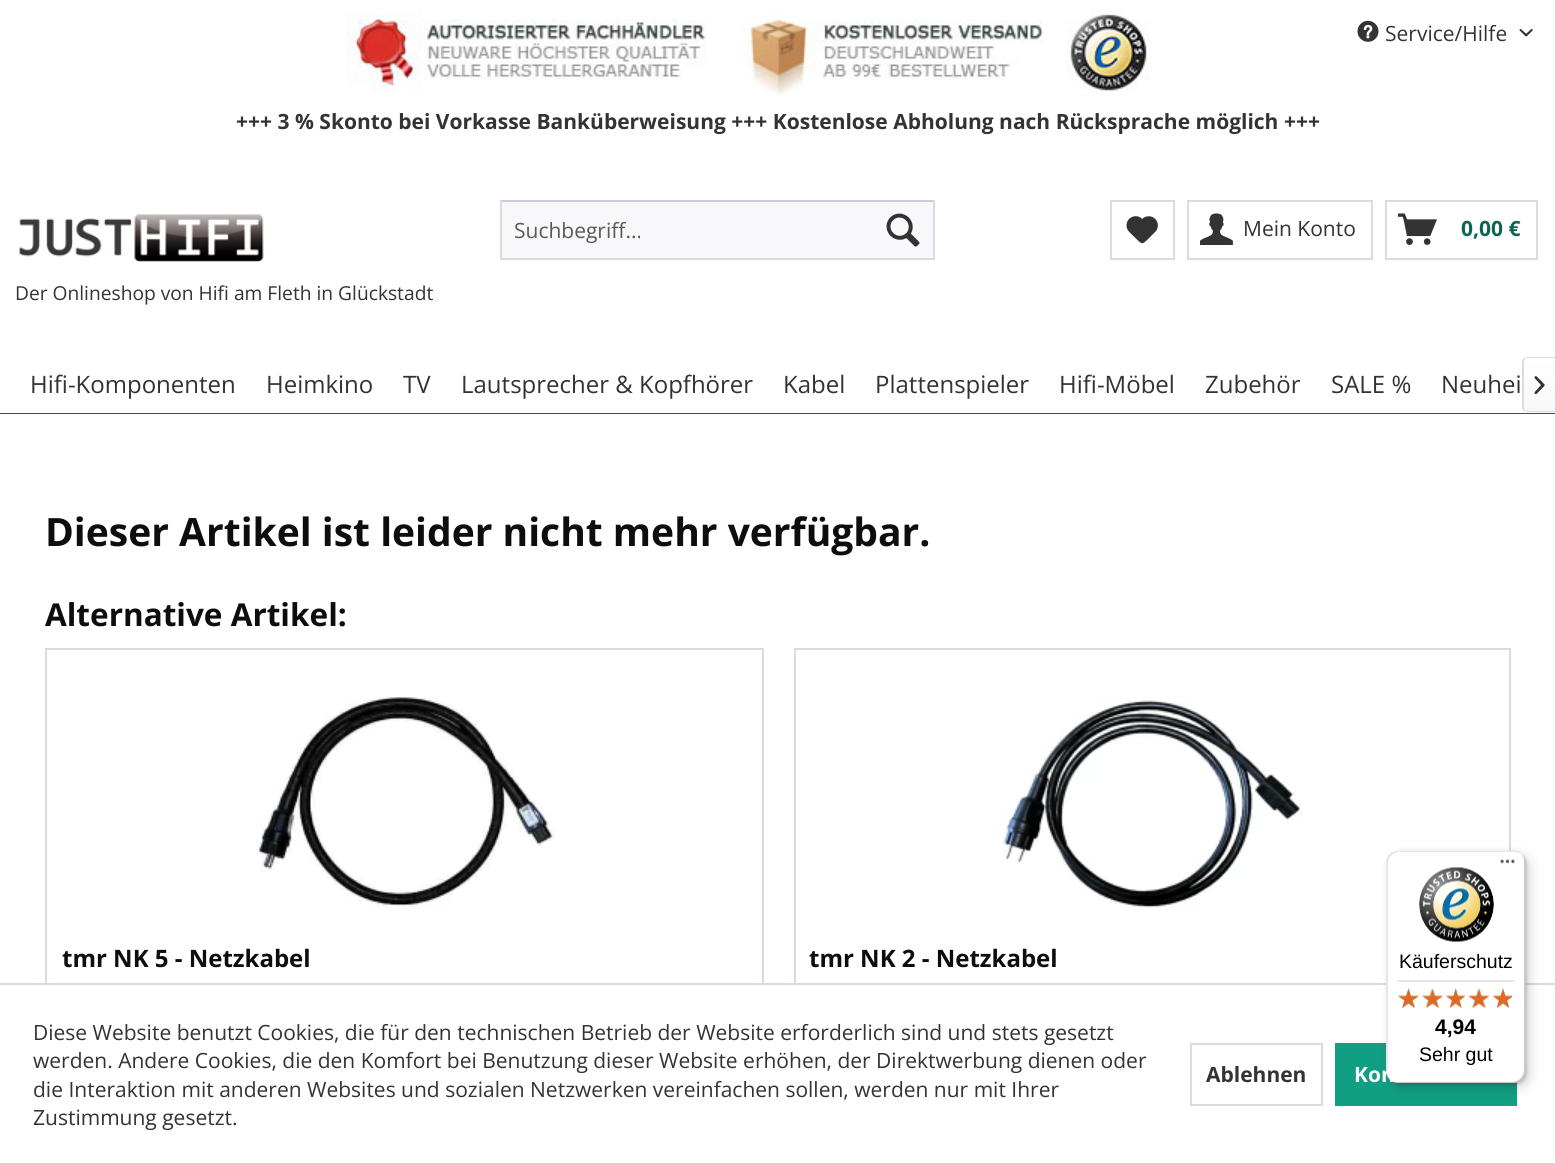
#include <cairo.h>
#include <math.h>
#include <stddef.h>


static void rgb(cairo_t *cr, int r, int g, int b)
{
	cairo_set_source_rgb(cr, r / 255.0, g / 255.0, b / 255.0);
}

static void face(cairo_t *cr, const char *family, double size, int italic, int bold)
{
	cairo_select_font_face(cr, family, italic ? CAIRO_FONT_SLANT_ITALIC : CAIRO_FONT_SLANT_NORMAL,
		bold ? CAIRO_FONT_WEIGHT_BOLD : CAIRO_FONT_WEIGHT_NORMAL);
	cairo_set_font_size(cr, size);
}

static void label(cairo_t *cr, double x, double y, const char *s)
{
	cairo_move_to(cr, x, y);
	cairo_show_text(cr, s);
}

static void rect(cairo_t *cr, double x, double y, double w, double h)
{
	cairo_rectangle(cr, x, y, w, h);
	cairo_fill(cr);
}

static void rrect(cairo_t *cr, double x, double y, double w, double h, double r)
{
	cairo_new_sub_path(cr);
	cairo_arc(cr, x + w - r, y + h - r, r, 0, M_PI / 2);
	cairo_arc(cr, x + r, y + h - r, r, M_PI / 2, M_PI);
	cairo_arc(cr, x + r, y + r, r, M_PI, 1.5 * M_PI);
	cairo_arc(cr, x + w - r, y + r, r, 1.5 * M_PI, 2 * M_PI);
	cairo_close_path(cr);
}

static void soft_shadow(cairo_t *cr, double x, double y, double w, double h, double r, double blur, double alpha)
{
	cairo_push_group_with_content(cr, CAIRO_CONTENT_ALPHA);
	cairo_set_operator(cr, CAIRO_OPERATOR_SOURCE);
	for (int i = 15; i >= -15 && fmin(w, h) + blur * i / 3 > 0; i -= 2) {
		double e = blur * i / 6;
		cairo_set_source_rgba(cr, 0, 0, 0, alpha * erfc((i - 1) / 8.5) / 2);
		rrect(cr, x - e, y - e, w + 2 * e, h + 2 * e, fmax(0, fmin(r + e + blur * .6, fmin(w, h) / 2 + e)));
		cairo_fill(cr);
	}
	cairo_pattern_t *soft = cairo_pop_group(cr);
	cairo_mask(cr, soft);
	cairo_pattern_destroy(soft);
}

static void image(cairo_t *cr, const char *path, double x, double y, double w, double h)
{
	cairo_surface_t *image = cairo_image_surface_create_from_png(path);
	cairo_save(cr);
	cairo_set_source_surface(cr, image, x, y);
	cairo_rectangle(cr, x, y, w, h);
	cairo_fill(cr);
	cairo_restore(cr);
	cairo_surface_destroy(image);
}

static void draw(cairo_t *cr) {
	cairo_pattern_t *gradient;
	rgb(cr, 255, 255, 255);
	cairo_paint(cr);
	image(cr, "image0.png", 346, 9, 804, 88);
	image(cr, "image1.png", 1357, 20, 22, 22);
	face(cr, "Open Sans", 21, 0, 0);
	rgb(cr, 51, 51, 51);
	label(cr, 1385, 41, "Service/Hilfe");
	image(cr, "image2.png", 1519, 29, 14, 8);
	face(cr, "Open Sans", 21, 0, 1);
	label(cr, 236, 129, "+++ 3 % Skonto bei Vorkasse Banküberweisung +++ Kostenlose Abholung nach Rücksprache möglich +++");
	rgb(cr, 248, 248, 250);
	rect(cr, 502, 202, 431, 56);
	rgb(cr, 203, 203, 219);
	rect(cr, 500, 200, 435, 2);
	rgb(cr, 218, 218, 229);
	rect(cr, 933, 200, 2, 60);
	rect(cr, 500, 258, 435, 2);
	rect(cr, 500, 200, 2, 60);
	face(cr, "Open Sans", 21, 0, 0);
	rgb(cr, 89, 89, 89);
	label(cr, 514, 238, "Suchbegriff...");
	image(cr, "image3.png", 886, 213, 34, 34);
	cairo_rectangle(cr, 1111, 201, 63, 58);
	rgb(cr, 218, 218, 229);
	cairo_stroke(cr);
	image(cr, "image4.png", 1126, 216, 32, 28);
	cairo_rectangle(cr, 1188, 201, 184, 58);
	cairo_stroke(cr);
	image(cr, "image5.png", 1200, 213, 33, 32);
	rgb(cr, 51, 51, 51);
	label(cr, 1243, 236, "Mein Konto");
	cairo_rectangle(cr, 1386, 201, 151, 58);
	rgb(cr, 218, 218, 229);
	cairo_stroke(cr);
	image(cr, "image6.png", 1398, 213, 39, 32);
	face(cr, "Open Sans", 21, 0, 1);
	rgb(cr, 13, 100, 83);
	label(cr, 1461, 236, "0,00 €");
	image(cr, "image7.png", 19, 214, 245, 49);
	face(cr, "Open Sans", 19.2, 0, 0);
	rgb(cr, 51, 51, 51);
	label(cr, 15, 300, "Der Onlineshop von Hifi am Fleth in Glückstadt");
	rgb(cr, 13, 100, 83);
	rect(cr, 0, 413, 1555, 1);
	face(cr, "Open Sans", 24, 0, 0);
	rgb(cr, 51, 51, 51);
	label(cr, 30, 393, "Hifi-Komponenten");
	label(cr, 266, 393, "Heimkino");
	label(cr, 403, 393, "TV");
	label(cr, 461, 393, "Lautsprecher & Kopfhörer");
	label(cr, 783, 393, "Kabel");
	label(cr, 875, 393, "Plattenspieler");
	label(cr, 1059, 393, "Hifi-Möbel");
	label(cr, 1205, 393, "Zubehör");
	label(cr, 1331, 393, "SALE %");
	label(cr, 1441, 393, "Neuhei");
	gradient = cairo_pattern_create_linear(1540, 359, 1540, 411);
	cairo_pattern_add_color_stop_rgba(gradient, 0, 1, 1, 1, 1);
	cairo_pattern_add_color_stop_rgba(gradient, 1, 0.973, 0.973, 0.98, 1);
	cairo_set_source(cr, gradient);
	cairo_pattern_destroy(gradient);
	cairo_new_path(cr);
	cairo_move_to(cr, 1527, 359);
	cairo_line_to(cr, 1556, 359);
	cairo_line_to(cr, 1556, 411);
	cairo_line_to(cr, 1527, 411);
	cairo_curve_to(cr, 1525.5, 411, 1524, 409.5, 1524, 408);
	cairo_line_to(cr, 1524, 362);
	cairo_curve_to(cr, 1524, 360.5, 1525.5, 359, 1527, 359);
	cairo_close_path(cr);
	cairo_fill(cr);
	rgb(cr, 218, 218, 229);
	cairo_set_fill_rule(cr, CAIRO_FILL_RULE_EVEN_ODD);
	cairo_new_path(cr);
	cairo_move_to(cr, 1527, 357);
	cairo_line_to(cr, 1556, 357);
	cairo_line_to(cr, 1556, 412);
	cairo_line_to(cr, 1527, 412);
	cairo_curve_to(cr, 1525, 412, 1522, 410, 1522, 408);
	cairo_line_to(cr, 1522, 362);
	cairo_curve_to(cr, 1522, 359, 1525, 357, 1527, 357);
	cairo_close_path(cr);
	cairo_move_to(cr, 1527, 358);
	cairo_line_to(cr, 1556, 358);
	cairo_line_to(cr, 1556, 411);
	cairo_line_to(cr, 1527, 411);
	cairo_curve_to(cr, 1525, 411, 1524, 410, 1524, 408);
	cairo_line_to(cr, 1524, 362);
	cairo_curve_to(cr, 1524, 360, 1525, 358, 1527, 358);
	cairo_close_path(cr);
	cairo_fill(cr);
	image(cr, "image8.png", 1534, 376, 11, 19);
	face(cr, "Open Sans", 39, 0, 1);
	rgb(cr, 13, 13, 13);
	label(cr, 45, 546, "Dieser Artikel ist leider nicht mehr verfügbar.");
	face(cr, "Open Sans", 31.5, 0, 1);
	label(cr, 45, 626, "Alternative Artikel:");
	cairo_rectangle(cr, 46, 649, 717, 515);
	rgb(cr, 218, 218, 229);
	cairo_stroke(cr);
	image(cr, "image9.png", 255, 697, 300, 212);
	face(cr, "Open Sans", 24, 0, 1);
	rgb(cr, 13, 13, 13);
	label(cr, 62, 967, "tmr NK 5 - Netzkabel");
	cairo_rectangle(cr, 795, 649, 715, 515);
	rgb(cr, 218, 218, 229);
	cairo_stroke(cr);
	image(cr, "image10.png", 1002, 700, 300, 208);
	rgb(cr, 13, 13, 13);
	label(cr, 809, 967, "tmr NK 2 - Netzkabel");
	rgb(cr, 255, 255, 255);
	rect(cr, 45, 985, 1466, 178);
	rgb(cr, 218, 218, 229);
	rect(cr, 0, 983, 1555, 2);
	rgb(cr, 16, 159, 131);
	rect(cr, 1335, 1043, 182, 63);
	rgb(cr, 0, 0, 0);
	soft_shadow(cr, 1391, 855, 139, 233, 12, 6, 0.15);
	soft_shadow(cr, 1388, 852, 139, 233, 12, 1.5, 0.15);
	rgb(cr, 255, 255, 255);
	rrect(cr, 1386, 851, 140, 232, 12);
	cairo_fill(cr);
	cairo_set_source_rgba(cr, 0, 0, 0, 0.1);
	cairo_set_fill_rule(cr, CAIRO_FILL_RULE_WINDING);
	cairo_new_path(cr);
	cairo_move_to(cr, 1400, 852);
	cairo_line_to(cr, 1515, 852);
	cairo_curve_to(cr, 1518, 852, 1520, 853, 1522, 854);
	cairo_curve_to(cr, 1520, 852, 1517, 851, 1514, 851);
	cairo_line_to(cr, 1398, 851);
	cairo_curve_to(cr, 1391, 851, 1386, 856, 1386, 863);
	cairo_line_to(cr, 1386, 1071);
	cairo_curve_to(cr, 1386, 1076, 1389, 1080, 1393, 1082);
	cairo_curve_to(cr, 1390, 1080, 1388, 1076, 1388, 1072);
	cairo_line_to(cr, 1388, 864);
	cairo_curve_to(cr, 1388, 857, 1393, 852, 1400, 852);
	cairo_close_path(cr);
	cairo_fill(cr);
	face(cr, "Open Sans", 21, 0, 1);
	rgb(cr, 255, 255, 255);
	label(cr, 1354, 1082, "Kon");
	cairo_set_source_rgba(cr, 0, 0, 0, 0.2);
	cairo_new_path(cr);
	cairo_move_to(cr, 1391, 1080);
	cairo_curve_to(cr, 1393, 1082, 1395, 1083, 1398, 1083);
	cairo_line_to(cr, 1514, 1083);
	cairo_curve_to(cr, 1521, 1083, 1526, 1078, 1526, 1071);
	cairo_line_to(cr, 1526, 863);
	cairo_curve_to(cr, 1526, 859, 1524, 856, 1522, 854);
	cairo_curve_to(cr, 1523, 856, 1524, 858, 1524, 861);
	cairo_line_to(cr, 1524, 1070);
	cairo_curve_to(cr, 1524, 1076, 1519, 1082, 1512, 1082);
	cairo_line_to(cr, 1396, 1082);
	cairo_curve_to(cr, 1394, 1082, 1392, 1081, 1391, 1080);
	cairo_close_path(cr);
	cairo_fill(cr);
	cairo_set_source_rgba(cr, 0.196, 0.196, 0.196, 0.2);
	cairo_new_path(cr);
	cairo_move_to(cr, 1390, 1080);
	cairo_curve_to(cr, 1392, 1082, 1395, 1083, 1398, 1083);
	cairo_line_to(cr, 1514, 1083);
	cairo_curve_to(cr, 1521, 1083, 1526, 1078, 1526, 1071);
	cairo_line_to(cr, 1526, 863);
	cairo_curve_to(cr, 1526, 859, 1524, 856, 1522, 854);
	cairo_curve_to(cr, 1524, 856, 1525, 859, 1525, 862);
	cairo_line_to(cr, 1525, 1070);
	cairo_curve_to(cr, 1525, 1077, 1519, 1082, 1513, 1082);
	cairo_line_to(cr, 1397, 1082);
	cairo_curve_to(cr, 1394, 1082, 1392, 1081, 1390, 1080);
	cairo_close_path(cr);
	cairo_fill(cr);
	cairo_set_source_rgba(cr, 1, 1, 1, 0.3);
	cairo_new_path(cr);
	cairo_move_to(cr, 1389, 1079);
	cairo_curve_to(cr, 1391, 1081, 1394, 1083, 1398, 1083);
	cairo_line_to(cr, 1514, 1083);
	cairo_curve_to(cr, 1521, 1083, 1526, 1078, 1526, 1071);
	cairo_line_to(cr, 1526, 863);
	cairo_curve_to(cr, 1526, 859, 1524, 856, 1522, 854);
	cairo_curve_to(cr, 1524, 856, 1525, 859, 1525, 862);
	cairo_line_to(cr, 1525, 1070);
	cairo_curve_to(cr, 1525, 1077, 1519, 1082, 1513, 1082);
	cairo_line_to(cr, 1397, 1082);
	cairo_curve_to(cr, 1394, 1082, 1391, 1081, 1389, 1079);
	cairo_close_path(cr);
	cairo_fill(cr);
	image(cr, "image11.png", 1500, 859, 15, 5);
	image(cr, "image12.png", 1419, 867, 75, 75);
	face(cr, "Liberation Sans", 19.5, 0, 0);
	rgb(cr, 0, 0, 0);
	label(cr, 1399, 968, "Käuferschutz");
	rgb(cr, 229, 229, 229);
	rect(cr, 1398, 980, 116, 2);
	image(cr, "image13.png", 1398, 988, 21, 20);
	image(cr, "image14.png", 1422, 989, 21, 19);
	image(cr, "image15.png", 1446, 988, 19, 20);
	image(cr, "image16.png", 1469, 989, 20, 19);
	image(cr, "image17.png", 1493, 988, 20, 20);
	image(cr, "image18.png", 1398, 988, 21, 20);
	image(cr, "image19.png", 1422, 988, 21, 20);
	image(cr, "image20.png", 1446, 988, 19, 20);
	image(cr, "image21.png", 1468, 988, 22, 20);
	image(cr, "image22.png", 1493, 988, 19, 20);
	face(cr, "Liberation Sans", 21, 0, 1);
	rgb(cr, 0, 0, 0);
	label(cr, 1435, 1034, "4,94");
	face(cr, "Liberation Sans", 19.5, 0, 0);
	label(cr, 1419, 1061, "Sehr gut");
	face(cr, "Open Sans", 21, 0, 0);
	rgb(cr, 51, 51, 51);
	label(cr, 33, 1040, "Diese Website benutzt Cookies, die für den technischen Betrieb der Website erforderlich sind und stets gesetzt");
	label(cr, 33, 1068, "werden. Andere Cookies, die den Komfort bei Benutzung dieser Website erhöhen, der Direktwerbung dienen oder");
	label(cr, 33, 1097, "die Interaktion mit anderen Websites und sozialen Netzwerken vereinfachen sollen, werden nur mit Ihrer");
	label(cr, 33, 1125, "Zustimmung gesetzt.");
	cairo_rectangle(cr, 1191, 1044, 131, 61);
	rgb(cr, 218, 218, 229);
	cairo_stroke(cr);
	face(cr, "Open Sans", 21, 0, 1);
	rgb(cr, 51, 51, 51);
	label(cr, 1206, 1082, "Ablehnen");
}

int main(void) {
	cairo_surface_t *surface = cairo_image_surface_create(CAIRO_FORMAT_RGB24, 1555, 1163);
	cairo_t *cr = cairo_create(surface);
	cairo_font_options_t *options = cairo_font_options_create();
	cairo_font_options_set_hint_metrics(options, CAIRO_HINT_METRICS_OFF);
	cairo_font_options_set_hint_style(options, CAIRO_HINT_STYLE_NONE);
	cairo_set_font_options(cr, options);
	cairo_set_miter_limit(cr, 4);
	draw(cr);
	cairo_surface_write_to_png(surface, "render.png");
	cairo_font_options_destroy(options);
	cairo_destroy(cr);
	cairo_surface_destroy(surface);
	return 0;
}
